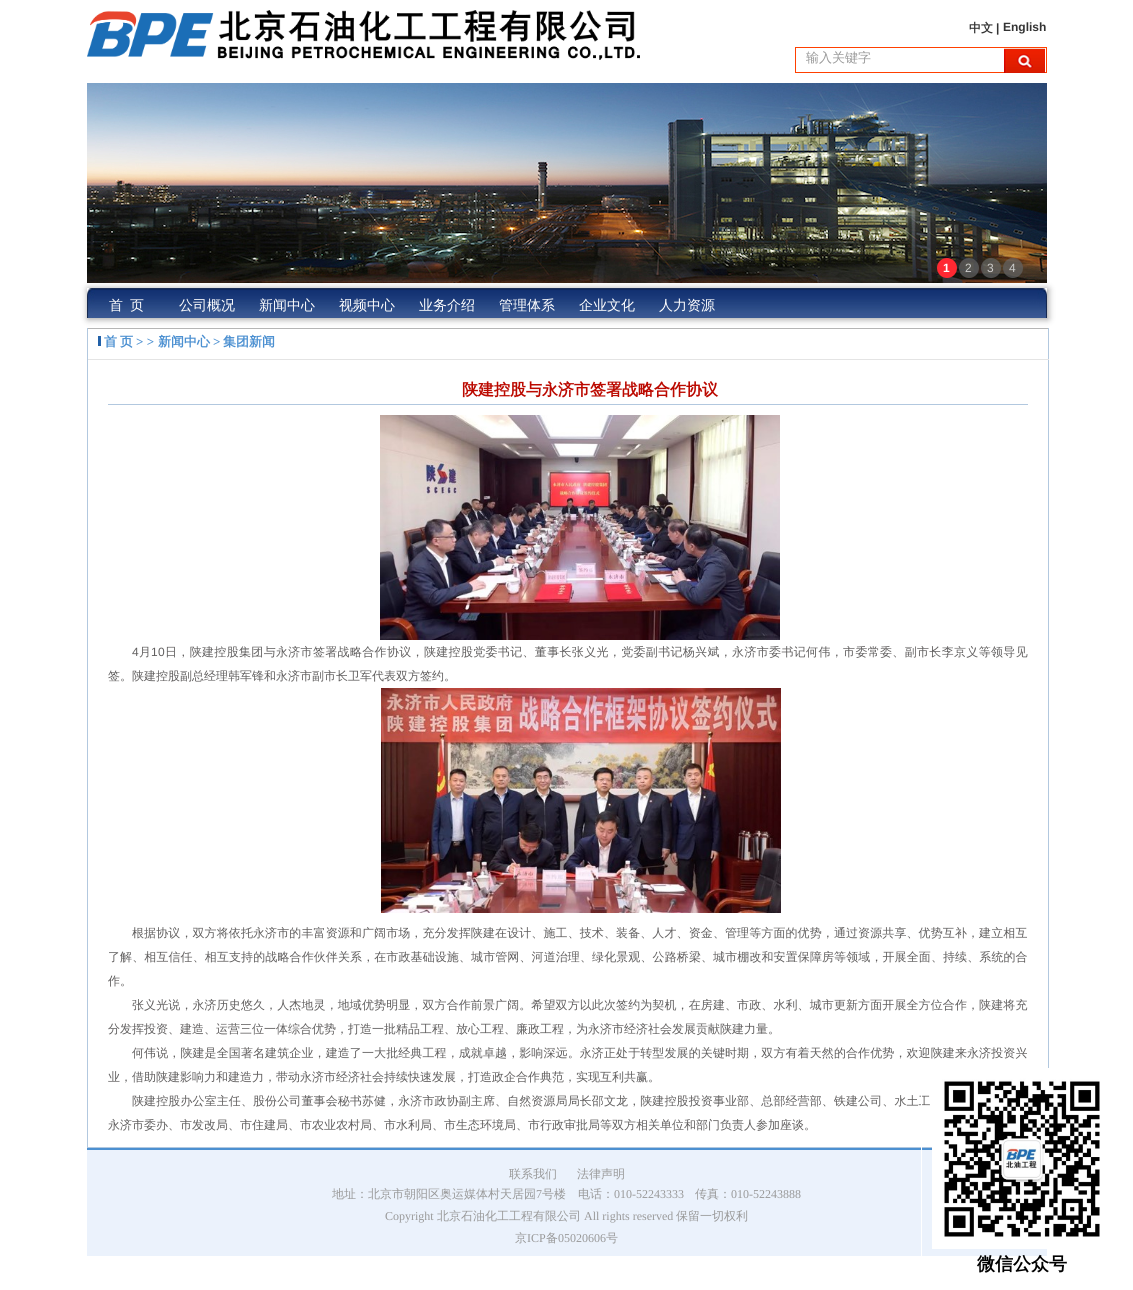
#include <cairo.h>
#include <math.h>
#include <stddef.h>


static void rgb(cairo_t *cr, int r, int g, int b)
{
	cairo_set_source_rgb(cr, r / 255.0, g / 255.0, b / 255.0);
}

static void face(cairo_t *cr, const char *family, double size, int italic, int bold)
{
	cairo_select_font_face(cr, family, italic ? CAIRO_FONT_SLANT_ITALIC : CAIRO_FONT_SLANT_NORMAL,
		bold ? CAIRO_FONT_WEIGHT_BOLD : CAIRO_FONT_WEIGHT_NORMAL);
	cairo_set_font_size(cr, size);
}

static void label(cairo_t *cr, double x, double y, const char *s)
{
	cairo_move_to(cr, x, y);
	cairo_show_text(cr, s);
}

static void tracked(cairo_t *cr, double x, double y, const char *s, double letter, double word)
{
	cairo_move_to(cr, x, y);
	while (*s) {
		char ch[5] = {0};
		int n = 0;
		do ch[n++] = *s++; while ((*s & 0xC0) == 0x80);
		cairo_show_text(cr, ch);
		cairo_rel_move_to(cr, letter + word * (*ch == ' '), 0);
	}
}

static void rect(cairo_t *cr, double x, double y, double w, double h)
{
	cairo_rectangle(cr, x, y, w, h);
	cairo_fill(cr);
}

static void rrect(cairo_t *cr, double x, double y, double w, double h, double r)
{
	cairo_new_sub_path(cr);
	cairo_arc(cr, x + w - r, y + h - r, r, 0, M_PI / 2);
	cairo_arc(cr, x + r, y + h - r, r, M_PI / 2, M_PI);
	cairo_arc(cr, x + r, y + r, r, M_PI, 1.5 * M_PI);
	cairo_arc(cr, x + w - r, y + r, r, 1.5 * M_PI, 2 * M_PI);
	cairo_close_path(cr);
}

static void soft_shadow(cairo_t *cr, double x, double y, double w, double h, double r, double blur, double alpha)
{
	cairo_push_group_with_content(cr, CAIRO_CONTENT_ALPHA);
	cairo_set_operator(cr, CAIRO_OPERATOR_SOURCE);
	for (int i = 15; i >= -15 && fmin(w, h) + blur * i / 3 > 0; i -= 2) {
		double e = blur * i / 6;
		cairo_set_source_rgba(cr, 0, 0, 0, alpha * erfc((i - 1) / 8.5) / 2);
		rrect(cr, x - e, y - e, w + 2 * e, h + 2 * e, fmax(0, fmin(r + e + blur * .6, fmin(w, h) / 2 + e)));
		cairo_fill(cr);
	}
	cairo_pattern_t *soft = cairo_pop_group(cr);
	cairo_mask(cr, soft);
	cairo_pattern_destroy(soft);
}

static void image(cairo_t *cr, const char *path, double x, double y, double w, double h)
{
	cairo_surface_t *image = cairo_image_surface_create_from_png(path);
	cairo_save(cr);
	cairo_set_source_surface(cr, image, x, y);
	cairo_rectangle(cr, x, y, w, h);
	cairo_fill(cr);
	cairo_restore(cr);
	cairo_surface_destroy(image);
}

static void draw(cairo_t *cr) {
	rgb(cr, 255, 255, 255);
	cairo_paint(cr);
	image(cr, "image0.png", 87, 10, 553, 50);
	face(cr, "WenQuanYi Zen Hei", 12, 0, 1);
	rgb(cr, 51, 51, 51);
	label(cr, 969, 32, "中文");
	face(cr, "Liberation Sans", 12, 0, 1);
	label(cr, 996, 32, "|");
	label(cr, 1003, 31, "English");
	cairo_rectangle(cr, 795.5, 47.5, 251, 25);
	rgb(cr, 255, 64, 0);
	cairo_set_line_width(cr, 1);
	cairo_stroke(cr);
	face(cr, "WenQuanYi Zen Hei Medium", 13, 0, 0);
	rgb(cr, 153, 153, 153);
	label(cr, 806, 62, "输入关键字");
	image(cr, "image1.png", 1004, 48, 41, 25);
	rgb(cr, 153, 153, 153);
	soft_shadow(cr, 88, 289, 960, 30, 0, 3.5, 1);
	image(cr, "image2.png", 87, 83, 960, 200);
	rgb(cr, 255, 40, 50);
	cairo_arc(cr, 947, 268, 10, 0, 2 * M_PI);
	cairo_fill(cr);
	face(cr, "Liberation Sans", 12, 0, 1);
	rgb(cr, 255, 255, 255);
	label(cr, 943, 272, "1");
	cairo_set_source_rgba(cr, 0.392, 0.392, 0.392, 0.7);
	cairo_new_path(cr);
	cairo_arc(cr, 969, 268, 10, 0, 2 * M_PI);
	cairo_fill(cr);
	face(cr, "Liberation Sans", 12, 0, 0);
	rgb(cr, 204, 204, 203);
	label(cr, 965, 272, "2");
	cairo_set_source_rgba(cr, 0.392, 0.392, 0.392, 0.7);
	cairo_new_path(cr);
	cairo_arc(cr, 991, 268, 10, 0, 2 * M_PI);
	cairo_fill(cr);
	rgb(cr, 204, 204, 203);
	label(cr, 987, 272, "3");
	cairo_set_source_rgba(cr, 0.392, 0.392, 0.392, 0.7);
	cairo_new_path(cr);
	cairo_arc(cr, 1013, 268, 10, 0, 2 * M_PI);
	cairo_fill(cr);
	rgb(cr, 204, 204, 203);
	label(cr, 1009, 272, "4");
	image(cr, "image3.png", 87, 288, 960, 30);
	face(cr, "WenQuanYi Zen Hei Medium", 14, 0, 0);
	rgb(cr, 255, 255, 255);
	label(cr, 109, 310, "首");
	label(cr, 130, 310, "页");
	label(cr, 179, 310, "公司概况");
	label(cr, 259, 310, "新闻中心");
	label(cr, 339, 310, "视频中心");
	label(cr, 419, 310, "业务介绍");
	label(cr, 499, 310, "管理体系");
	label(cr, 579, 310, "企业文化");
	label(cr, 659, 310, "人力资源");
	rgb(cr, 181, 181, 181);
	rect(cr, 87, 328, 962, 1);
	rgb(cr, 178, 200, 223);
	rect(cr, 1048, 328, 1, 740);
	rgb(cr, 228, 228, 228);
	rect(cr, 87, 359, 962, 1);
	rgb(cr, 178, 200, 223);
	rect(cr, 87, 328, 1, 32);
	rgb(cr, 34, 97, 168);
	rect(cr, 98, 336, 3, 10);
	face(cr, "WenQuanYi Zen Hei", 13, 0, 1);
	rgb(cr, 76, 144, 209);
	tracked(cr, 104, 346, "首 页", 0, -1);
	face(cr, "Liberation Serif", 13, 0, 1);
	label(cr, 136, 346, "> >");
	face(cr, "WenQuanYi Zen Hei", 13, 0, 1);
	label(cr, 158, 346, "新闻中心");
	face(cr, "Liberation Serif", 13, 0, 1);
	label(cr, 213, 346, ">");
	face(cr, "WenQuanYi Zen Hei", 13, 0, 1);
	label(cr, 223, 346, "集团新闻");
	rgb(cr, 178, 200, 223);
	rect(cr, 87, 1147, 845, 1);
	rect(cr, 87, 360, 1, 788);
	rect(cr, 108, 404, 920, 1);
	face(cr, "WenQuanYi Zen Hei", 16, 0, 1);
	rgb(cr, 187, 9, 0);
	label(cr, 462, 395, "陕建控股与永济市签署战略合作协议");
	image(cr, "image4.png", 380, 415, 400, 225);
	face(cr, "Liberation Sans", 12, 0, 0);
	rgb(cr, 96, 94, 94);
	tracked(cr, 132, 656, "4", 0.33, 0);
	face(cr, "WenQuanYi Zen Hei Medium", 12, 0, 0);
	tracked(cr, 139, 656, "月", 0.33, 0);
	face(cr, "Liberation Sans", 12, 0, 0);
	tracked(cr, 151, 656, "10", 0.33, 0);
	face(cr, "WenQuanYi Zen Hei Medium", 12, 0, 0);
	tracked(cr, 165, 656, "日，陕建控股集团与永济市签署战略合作协议，陕建控股党委书记、董事长张义光，党委副书记杨兴斌，永济市委书记何伟，市委常委、副市长李京义等领导见", 0.33, 0);
	label(cr, 108, 680, "签。陕建控股副总经理韩军锋和永济市副市长卫军代表双方签约。");
	image(cr, "image5.png", 381, 688, 400, 225);
	tracked(cr, 132, 937, "根据协议，双方将依托永济市的丰富资源和广阔市场，充分发挥陕建在设计、施工、技术、装备、人才、资金、管理等方面的优势，通过资源共享、优势互补，建立相互", 0.1, 0);
	tracked(cr, 108, 961, "了解、相互信任、相互支持的战略合作伙伴关系，在市政基础设施、城市管网、河道治理、绿化景观、公路桥梁、城市棚改和安置保障房等领域，开展全面、持续、系统的合", 0.1, 0);
	label(cr, 108, 985, "作。");
	tracked(cr, 132, 1009, "张义光说，永济历史悠久，人杰地灵，地域优势明显，双方合作前景广阔。希望双方以此次签约为契机，在房建、市政、水利、城市更新方面开展全方位合作，陕建将充", 0.1, 0);
	label(cr, 108, 1033, "分发挥投资、建造、运营三位一体综合优势，打造一批精品工程、放心工程、廉政工程，为永济市经济社会发展贡献陕建力量。");
	tracked(cr, 132, 1057, "何伟说，陕建是全国著名建筑企业，建造了一大批经典工程，成就卓越，影响深远。永济正处于转型发展的关键时期，双方有着天然的合作优势，欢迎陕建来永济投资兴", 0.1, 0);
	label(cr, 108, 1081, "业，借助陕建影响力和建造力，带动永济市经济社会持续快速发展，打造政企合作典范，实现互利共赢。");
	tracked(cr, 132, 1105, "陕建控股办公室主任、股份公司董事会秘书苏健，永济市政协副主席、自然资源局局长邵文龙，陕建控股投资事业部、总部经营部、铁建公司、水土工", 0.1, 0);
	label(cr, 108, 1129, "永济市委办、市发改局、市住建局、市农业农村局、市水利局、市生态环境局、市行政审批局等双方相关单位和部门负责人参加座谈。");
	rgb(cr, 235, 242, 252);
	rect(cr, 87, 1150, 960, 106);
	rgb(cr, 76, 144, 209);
	rect(cr, 87, 1148, 845, 2);
	rgb(cr, 153, 153, 153);
	label(cr, 509, 1178, "联系我们");
	label(cr, 577, 1178, "法律声明");
	label(cr, 332, 1198, "地址：北京市朝阳区奥运媒体村天居园");
	face(cr, "Liberation Serif", 12, 0, 0);
	label(cr, 536, 1198, "7");
	face(cr, "WenQuanYi Zen Hei Medium", 12, 0, 0);
	label(cr, 542, 1198, "号楼");
	label(cr, 578, 1198, "电话：");
	face(cr, "Liberation Serif", 12, 0, 0);
	label(cr, 614, 1198, "010-52243333");
	face(cr, "WenQuanYi Zen Hei Medium", 12, 0, 0);
	label(cr, 695, 1198, "传真：");
	face(cr, "Liberation Serif", 12, 0, 0);
	label(cr, 731, 1198, "010-52243888");
	label(cr, 385, 1220, "Copyright");
	face(cr, "WenQuanYi Zen Hei Medium", 12, 0, 0);
	label(cr, 437, 1220, "北京石油化工工程有限公司");
	face(cr, "Liberation Serif", 12, 0, 0);
	label(cr, 584, 1220, "All rights reserved");
	face(cr, "WenQuanYi Zen Hei Medium", 12, 0, 0);
	label(cr, 676, 1220, "保留一切权利");
	label(cr, 515, 1242, "京");
	face(cr, "Liberation Serif", 12, 0, 0);
	label(cr, 527, 1242, "ICP");
	face(cr, "WenQuanYi Zen Hei Medium", 12, 0, 0);
	label(cr, 546, 1242, "备");
	face(cr, "Liberation Serif", 12, 0, 0);
	label(cr, 558, 1242, "05020606");
	face(cr, "WenQuanYi Zen Hei Medium", 12, 0, 0);
	label(cr, 606, 1242, "号");
	cairo_rectangle(cr, 921.5, 1068.5, 201, 211);
	rgb(cr, 255, 255, 255);
	cairo_stroke(cr);
	image(cr, "image6.png", 932, 1069, 168, 180);
	face(cr, "WenQuanYi Zen Hei", 18, 0, 1);
	rgb(cr, 0, 0, 0);
	label(cr, 977, 1270, "微信公众号");
}

int main(void) {
	cairo_surface_t *surface = cairo_image_surface_create(CAIRO_FORMAT_RGB24, 1133, 1290);
	cairo_t *cr = cairo_create(surface);
	cairo_font_options_t *options = cairo_font_options_create();
	cairo_font_options_set_hint_metrics(options, CAIRO_HINT_METRICS_OFF);
	cairo_font_options_set_hint_style(options, CAIRO_HINT_STYLE_NONE);
	cairo_set_font_options(cr, options);
	cairo_set_miter_limit(cr, 4);
	draw(cr);
	cairo_surface_write_to_png(surface, "render.png");
	cairo_font_options_destroy(options);
	cairo_destroy(cr);
	cairo_surface_destroy(surface);
	return 0;
}
